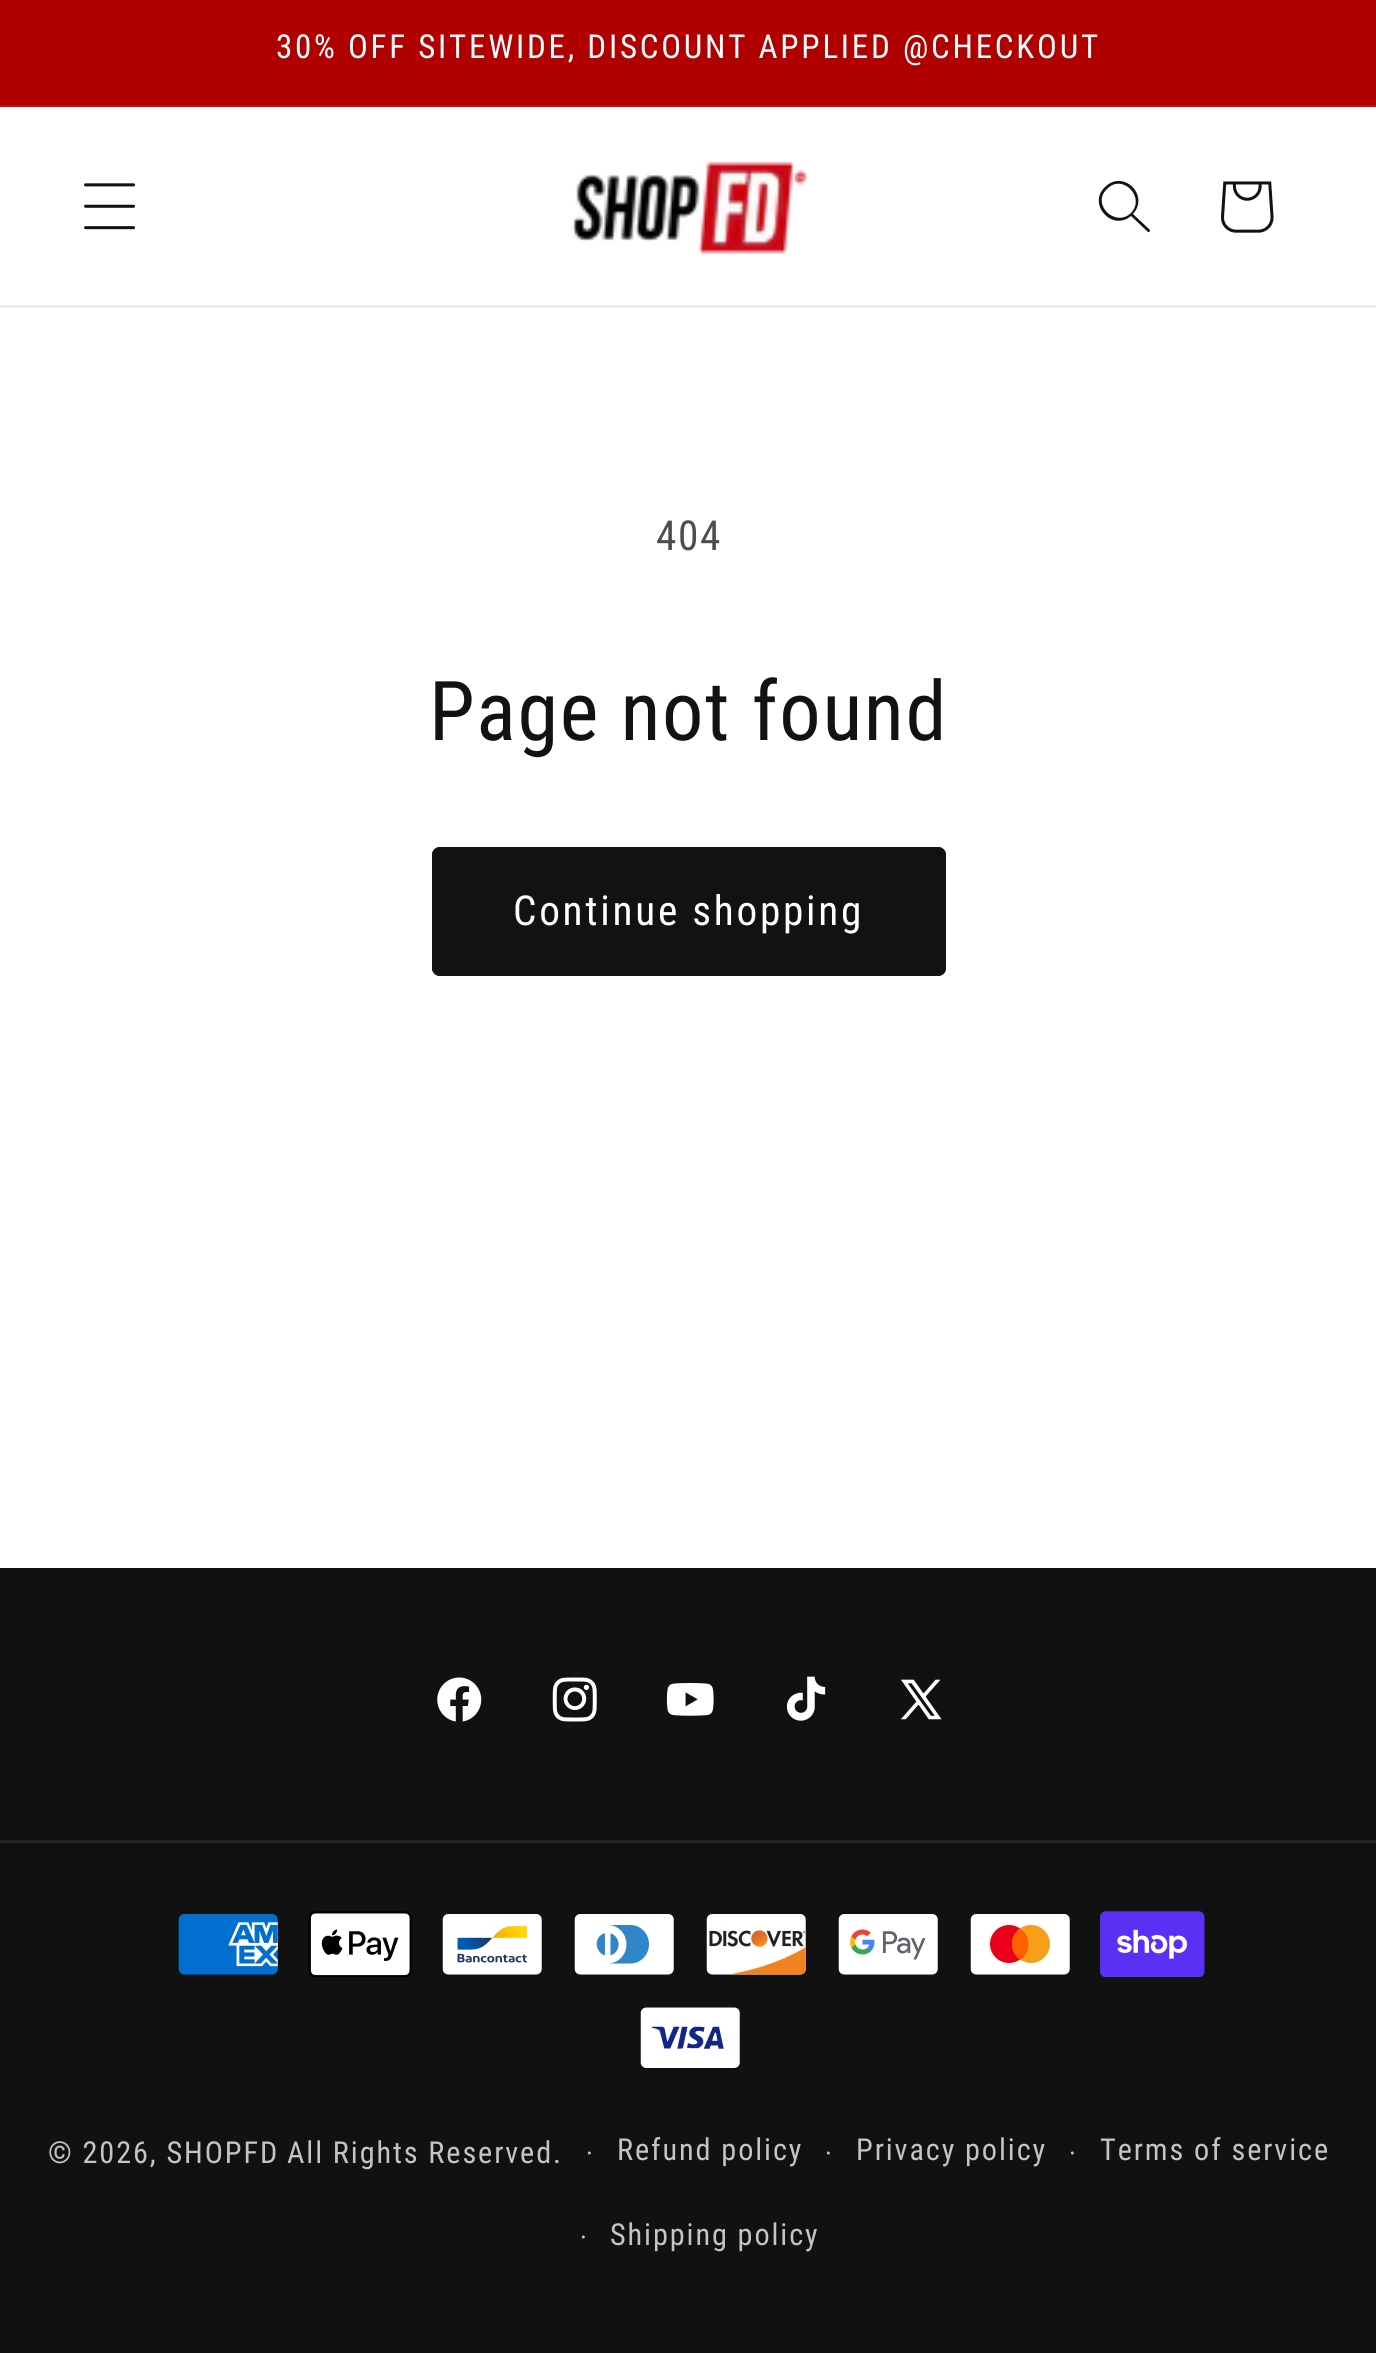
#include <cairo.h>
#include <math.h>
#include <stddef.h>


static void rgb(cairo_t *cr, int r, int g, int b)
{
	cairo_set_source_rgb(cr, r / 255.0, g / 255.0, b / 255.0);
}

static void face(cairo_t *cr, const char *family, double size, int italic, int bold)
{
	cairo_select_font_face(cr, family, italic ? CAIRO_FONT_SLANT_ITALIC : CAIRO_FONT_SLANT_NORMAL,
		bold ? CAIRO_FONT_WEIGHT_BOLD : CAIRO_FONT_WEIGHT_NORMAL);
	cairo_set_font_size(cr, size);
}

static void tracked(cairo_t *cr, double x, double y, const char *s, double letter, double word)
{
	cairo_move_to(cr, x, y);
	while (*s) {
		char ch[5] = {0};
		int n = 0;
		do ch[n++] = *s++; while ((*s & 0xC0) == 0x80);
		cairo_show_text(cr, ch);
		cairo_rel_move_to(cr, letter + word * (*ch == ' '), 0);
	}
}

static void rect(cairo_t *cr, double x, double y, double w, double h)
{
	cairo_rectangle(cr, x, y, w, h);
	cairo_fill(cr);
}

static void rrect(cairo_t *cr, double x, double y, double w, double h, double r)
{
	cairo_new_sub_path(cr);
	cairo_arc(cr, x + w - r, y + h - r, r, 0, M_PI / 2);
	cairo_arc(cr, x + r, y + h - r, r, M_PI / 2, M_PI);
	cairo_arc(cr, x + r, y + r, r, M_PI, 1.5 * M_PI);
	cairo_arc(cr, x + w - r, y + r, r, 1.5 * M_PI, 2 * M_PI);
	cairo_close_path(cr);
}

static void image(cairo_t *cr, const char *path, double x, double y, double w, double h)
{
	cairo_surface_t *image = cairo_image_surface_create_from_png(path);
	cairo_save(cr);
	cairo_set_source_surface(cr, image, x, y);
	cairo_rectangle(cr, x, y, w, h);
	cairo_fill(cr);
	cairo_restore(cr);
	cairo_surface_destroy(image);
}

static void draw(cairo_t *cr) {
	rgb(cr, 255, 255, 255);
	cairo_paint(cr);
	rgb(cr, 176, 0, 0);
	rect(cr, 0, 0, 1376, 105);
	rgb(cr, 182, 20, 20);
	rect(cr, 0, 105, 1376, 2);
	face(cr, "Roboto Condensed", 33, 0, 0);
	rgb(cr, 255, 255, 255);
	tracked(cr, 276, 58, "30% OFF SITEWIDE, DISCOUNT APPLIED @CHECKOUT", 2.75, 0);
	rgb(cr, 236, 236, 236);
	rect(cr, 0, 305, 1376, 3);
	image(cr, "image0.png", 84, 183, 52, 47);
	image(cr, "image1.png", 571, 161, 238, 93);
	rgb(cr, 18, 18, 18);
	cairo_set_fill_rule(cr, CAIRO_FILL_RULE_EVEN_ODD);
	cairo_new_path(cr);
	cairo_move_to(cr, 1131, 213);
	cairo_curve_to(cr, 1115, 228, 1091, 204, 1107, 189);
	cairo_curve_to(cr, 1122, 173, 1146, 197, 1131, 213);
	cairo_move_to(cr, 1131, 216);
	cairo_curve_to(cr, 1112, 232, 1087, 204, 1105, 187);
	cairo_curve_to(cr, 1123, 169, 1150, 195, 1133, 214);
	cairo_line_to(cr, 1150, 230);
	cairo_curve_to(cr, 1150, 232, 1148, 233, 1147, 231);
	cairo_close_path(cr);
	cairo_fill(cr);
	image(cr, "image2.png", 1221, 181, 53, 52);
	face(cr, "Roboto Condensed", 41.25, 0, 0);
	rgb(cr, 77, 77, 77);
	tracked(cr, 656, 550, "404", 1.6, 0);
	face(cr, "Roboto Condensed", 82.5, 0, 0);
	rgb(cr, 18, 18, 18);
	tracked(cr, 429, 740, "Page not found", 1.6, 0);
	rrect(cr, 432, 847, 514, 129, 8);
	cairo_fill(cr);
	rrect(cr, 433.5, 848.5, 511, 126, 6.5);
	cairo_set_line_width(cr, 3);
	cairo_stroke(cr);
	face(cr, "Roboto Condensed", 41.25, 0, 0);
	rgb(cr, 255, 255, 255);
	tracked(cr, 513, 925, "Continue shopping", 2.75, 0);
	rgb(cr, 17, 17, 17);
	rect(cr, 0, 1568, 1376, 785);
	image(cr, "image3.png", 437, 1677, 45, 45);
	image(cr, "image4.png", 552, 1677, 45, 45);
	image(cr, "image5.png", 666, 1683, 48, 33);
	image(cr, "image6.png", 786, 1676, 40, 45);
	image(cr, "image7.png", 900, 1679, 42, 41);
	rgb(cr, 36, 36, 36);
	rect(cr, 0, 1840, 1376, 3);
	image(cr, "image8.png", 178, 1914, 100, 61);
	image(cr, "image9.png", 308, 1911, 104, 66);
	image(cr, "image10.png", 442, 1914, 100, 61);
	image(cr, "image11.png", 574, 1914, 100, 61);
	image(cr, "image12.png", 706, 1914, 100, 61);
	image(cr, "image13.png", 838, 1914, 100, 61);
	image(cr, "image14.png", 970, 1914, 100, 61);
	image(cr, "image15.png", 1100, 1911, 105, 66);
	image(cr, "image16.png", 640, 2007, 100, 61);
	face(cr, "Roboto Condensed", 30.25, 0, 0);
	rgb(cr, 196, 196, 196);
	tracked(cr, 48, 2163, "© 2026, SHOPFD", 1.9, 0);
	tracked(cr, 287, 2163, "All Rights Reserved.", 1.9, 0);
	face(cr, "Roboto Condensed", 28, 0, 0);
	tracked(cr, 586, 2163, "·", 1.9, 0);
	face(cr, "Roboto Condensed", 30.25, 0, 0);
	tracked(cr, 617, 2160, "Refund policy", 1.9, 0);
	face(cr, "Roboto Condensed", 28, 0, 0);
	tracked(cr, 825, 2163, "·", 1.9, 0);
	face(cr, "Roboto Condensed", 30.25, 0, 0);
	tracked(cr, 856, 2160, "Privacy policy", 1.9, 0);
	face(cr, "Roboto Condensed", 28, 0, 0);
	tracked(cr, 1069, 2163, "·", 1.9, 0);
	face(cr, "Roboto Condensed", 30.25, 0, 0);
	tracked(cr, 1100, 2160, "Terms of service", 1.9, 0);
	face(cr, "Roboto Condensed", 28, 0, 0);
	tracked(cr, 580, 2247, "·", 1.9, 0);
	face(cr, "Roboto Condensed", 30.25, 0, 0);
	tracked(cr, 610, 2245, "Shipping policy", 1.9, 0);
}

int main(void) {
	cairo_surface_t *surface = cairo_image_surface_create(CAIRO_FORMAT_RGB24, 1376, 2353);
	cairo_t *cr = cairo_create(surface);
	cairo_font_options_t *options = cairo_font_options_create();
	cairo_font_options_set_hint_metrics(options, CAIRO_HINT_METRICS_OFF);
	cairo_font_options_set_hint_style(options, CAIRO_HINT_STYLE_NONE);
	cairo_set_font_options(cr, options);
	cairo_set_miter_limit(cr, 4);
	draw(cr);
	cairo_surface_write_to_png(surface, "render.png");
	cairo_font_options_destroy(options);
	cairo_destroy(cr);
	cairo_surface_destroy(surface);
	return 0;
}
